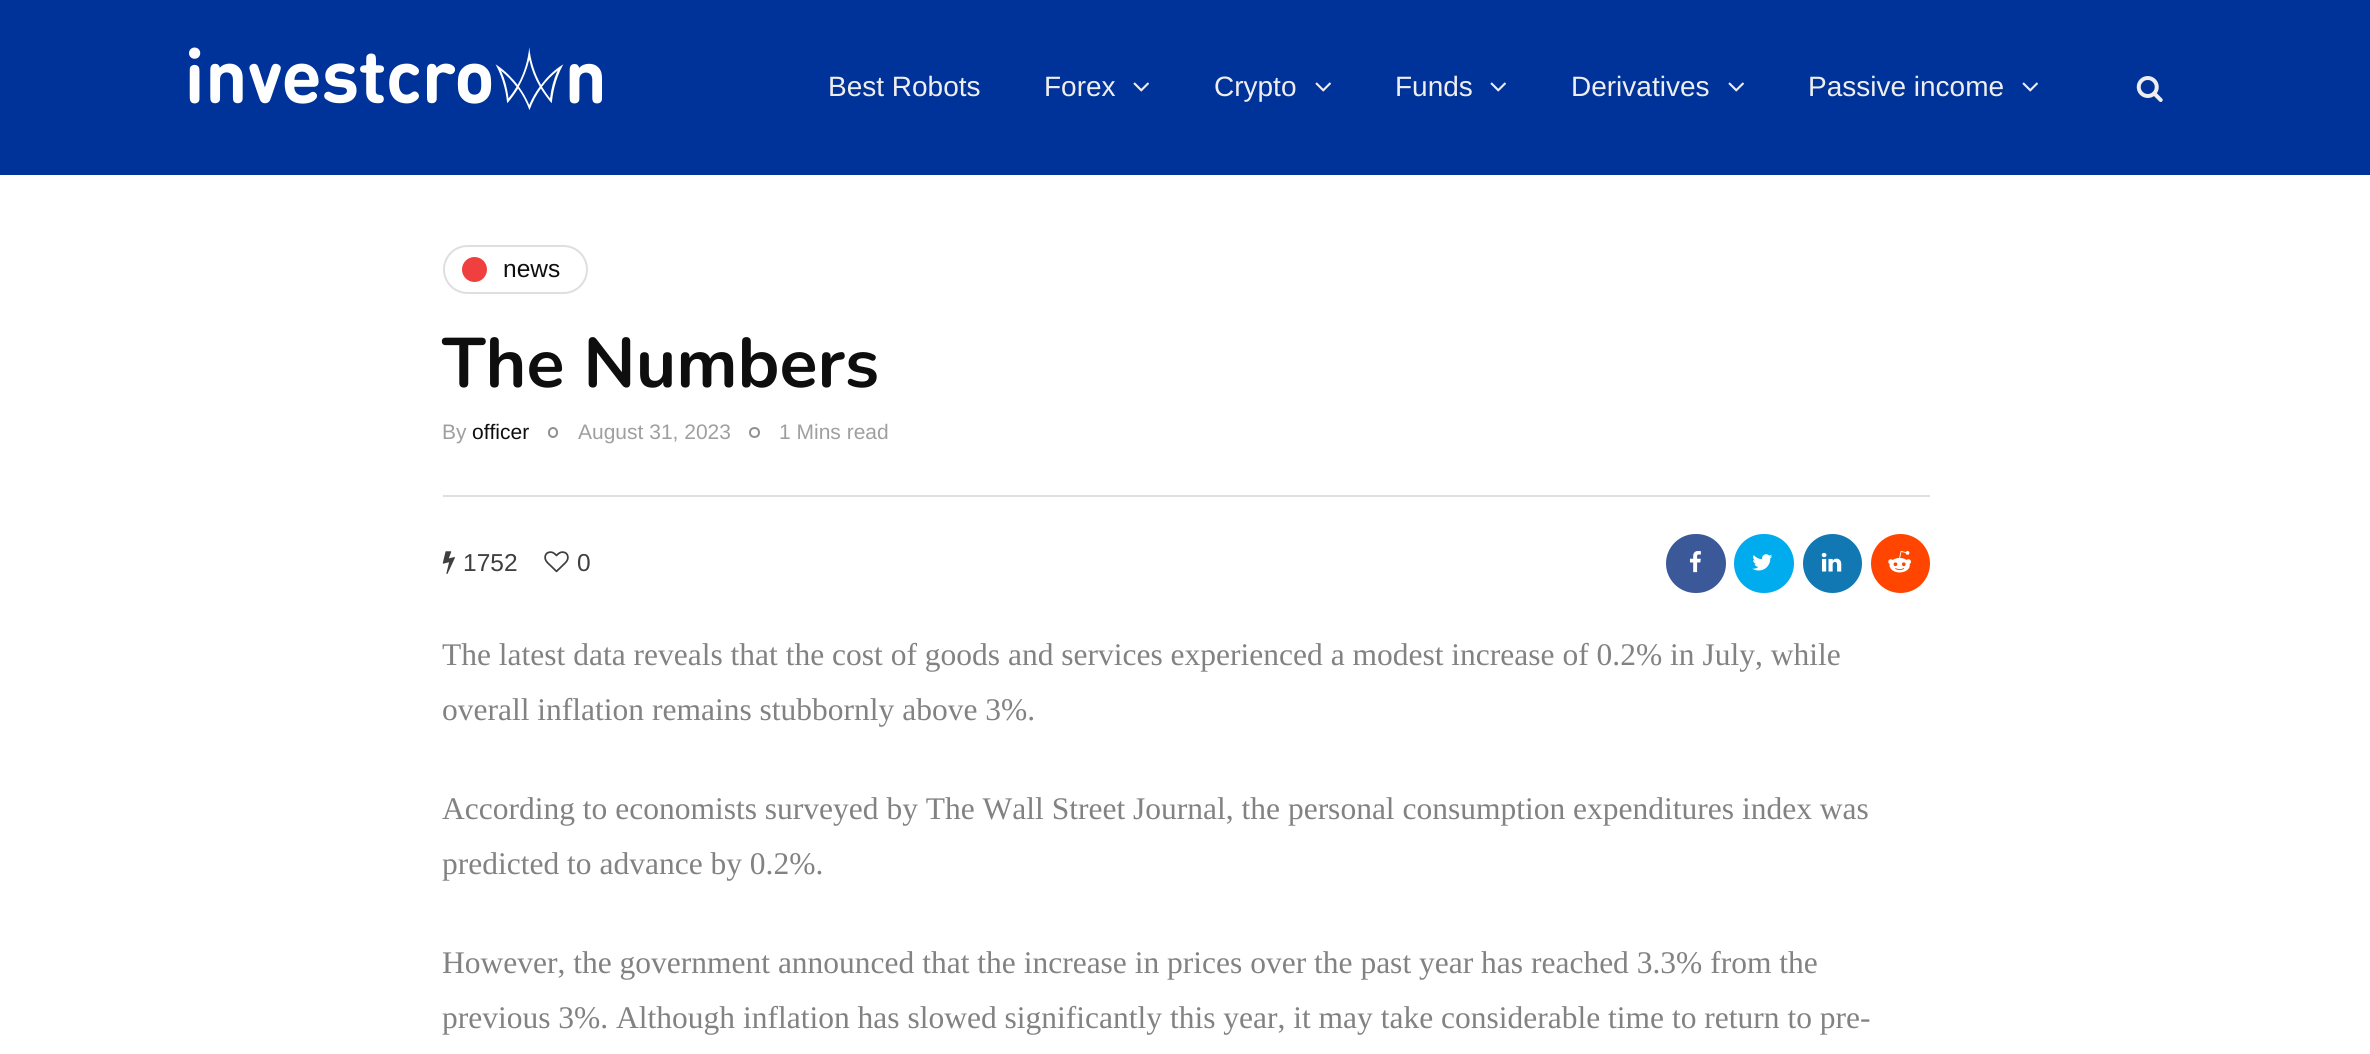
#include <cairo.h>
#include <math.h>
#include <stddef.h>


static void rgb(cairo_t *cr, int r, int g, int b)
{
	cairo_set_source_rgb(cr, r / 255.0, g / 255.0, b / 255.0);
}

static void face(cairo_t *cr, const char *family, double size, int italic, int bold)
{
	cairo_select_font_face(cr, family, italic ? CAIRO_FONT_SLANT_ITALIC : CAIRO_FONT_SLANT_NORMAL,
		bold ? CAIRO_FONT_WEIGHT_BOLD : CAIRO_FONT_WEIGHT_NORMAL);
	cairo_set_font_size(cr, size);
}

static void label(cairo_t *cr, double x, double y, const char *s)
{
	cairo_move_to(cr, x, y);
	cairo_show_text(cr, s);
}

static void rect(cairo_t *cr, double x, double y, double w, double h)
{
	cairo_rectangle(cr, x, y, w, h);
	cairo_fill(cr);
}

static void rrect(cairo_t *cr, double x, double y, double w, double h, double r)
{
	cairo_new_sub_path(cr);
	cairo_arc(cr, x + w - r, y + h - r, r, 0, M_PI / 2);
	cairo_arc(cr, x + r, y + h - r, r, M_PI / 2, M_PI);
	cairo_arc(cr, x + r, y + r, r, M_PI, 1.5 * M_PI);
	cairo_arc(cr, x + w - r, y + r, r, 1.5 * M_PI, 2 * M_PI);
	cairo_close_path(cr);
}

static void image(cairo_t *cr, const char *path, double x, double y, double w, double h)
{
	cairo_surface_t *image = cairo_image_surface_create_from_png(path);
	cairo_save(cr);
	cairo_set_source_surface(cr, image, x, y);
	cairo_rectangle(cr, x, y, w, h);
	cairo_fill(cr);
	cairo_restore(cr);
	cairo_surface_destroy(image);
}

static void draw(cairo_t *cr) {
	rgb(cr, 255, 255, 255);
	cairo_paint(cr);
	rgb(cr, 0, 51, 153);
	rect(cr, 0, 0, 2370, 175);
	image(cr, "image0.png", 189, 47, 413, 63);
	face(cr, "Liberation Sans", 28, 0, 0);
	rgb(cr, 238, 238, 238);
	label(cr, 828, 96, "Best Robots");
	label(cr, 1044, 96, "Forex");
	image(cr, "image1.png", 1133, 82, 16, 10);
	label(cr, 1214, 96, "Crypto");
	image(cr, "image1.png", 1315, 82, 16, 10);
	label(cr, 1395, 96, "Funds");
	image(cr, "image1.png", 1490, 82, 16, 10);
	label(cr, 1571, 96, "Derivatives");
	image(cr, "image1.png", 1728, 82, 16, 10);
	label(cr, 1808, 96, "Passive income");
	image(cr, "image1.png", 2022, 82, 16, 10);
	image(cr, "image2.png", 2136, 76, 27, 26);
	rrect(cr, 444, 246, 143, 47, 23.5);
	rgb(cr, 224, 222, 222);
	cairo_stroke(cr);
	rgb(cr, 239, 63, 62);
	cairo_arc(cr, 474.5, 269.5, 12.5, 0, 2 * M_PI);
	cairo_fill(cr);
	face(cr, "Liberation Sans", 24.5, 0, 0);
	rgb(cr, 15, 14, 14);
	label(cr, 503, 277, "news");
	face(cr, "Nunito", 70, 0, 1);
	label(cr, 442, 387, "The Numbers");
	face(cr, "Liberation Sans", 21, 0, 0);
	rgb(cr, 159, 159, 159);
	label(cr, 442, 439, "By");
	rgb(cr, 15, 14, 14);
	label(cr, 472, 439, "officer");
	rrect(cr, 549, 428, 8, 9, 4);
	rgb(cr, 144, 144, 144);
	cairo_stroke(cr);
	rgb(cr, 159, 159, 159);
	label(cr, 578, 439, "August 31, 2023");
	cairo_new_path(cr);
	cairo_arc(cr, 754.5, 432.5, 4.5, 0, 2 * M_PI);
	rgb(cr, 144, 144, 144);
	cairo_stroke(cr);
	rgb(cr, 159, 159, 159);
	label(cr, 779, 439, "1 Mins read");
	rgb(cr, 224, 222, 222);
	rect(cr, 443, 495, 1487, 2);
	image(cr, "image3.png", 442, 551, 13, 23);
	face(cr, "Liberation Sans", 24.5, 0, 0);
	rgb(cr, 63, 63, 63);
	label(cr, 463, 571, "1752");
	image(cr, "image4.png", 544, 551, 25, 22);
	label(cr, 577, 571, "0");
	rgb(cr, 59, 89, 152);
	rrect(cr, 1666, 534, 60, 59, 29.5);
	cairo_fill(cr);
	image(cr, "image5.png", 1689, 551, 12, 22);
	rgb(cr, 0, 172, 237);
	rrect(cr, 1734, 534, 60, 59, 29.5);
	cairo_fill(cr);
	image(cr, "image6.png", 1752, 554, 21, 17);
	rgb(cr, 17, 120, 179);
	cairo_arc(cr, 1832.5, 563.5, 29.5, 0, 2 * M_PI);
	cairo_fill(cr);
	image(cr, "image7.png", 1821, 552, 21, 20);
	rgb(cr, 255, 69, 0);
	cairo_arc(cr, 1900.5, 563.5, 29.5, 0, 2 * M_PI);
	cairo_fill(cr);
	image(cr, "image8.png", 1888, 551, 23, 22);
	face(cr, "Liberation Serif", 31.5, 0, 0);
	rgb(cr, 130, 130, 130);
	label(cr, 442, 665, "The latest data reveals that the cost of goods and services experienced a modest increase of 0.2% in July, while");
	label(cr, 442, 720, "overall inflation remains stubbornly above 3%.");
	label(cr, 442, 819, "According to economists surveyed by The Wall Street Journal, the personal consumption expenditures index was");
	label(cr, 442, 874, "predicted to advance by 0.2%.");
	label(cr, 442, 973, "However, the government announced that the increase in prices over the past year has reached 3.3% from the");
	label(cr, 442, 1028, "previous 3%. Although inflation has slowed significantly this year, it may take considerable time to return to pre-");
}

int main(void) {
	cairo_surface_t *surface = cairo_image_surface_create(CAIRO_FORMAT_RGB24, 2370, 1054);
	cairo_t *cr = cairo_create(surface);
	cairo_font_options_t *options = cairo_font_options_create();
	cairo_font_options_set_hint_metrics(options, CAIRO_HINT_METRICS_OFF);
	cairo_font_options_set_hint_style(options, CAIRO_HINT_STYLE_NONE);
	cairo_set_font_options(cr, options);
	cairo_set_miter_limit(cr, 4);
	draw(cr);
	cairo_surface_write_to_png(surface, "render.png");
	cairo_font_options_destroy(options);
	cairo_destroy(cr);
	cairo_surface_destroy(surface);
	return 0;
}
